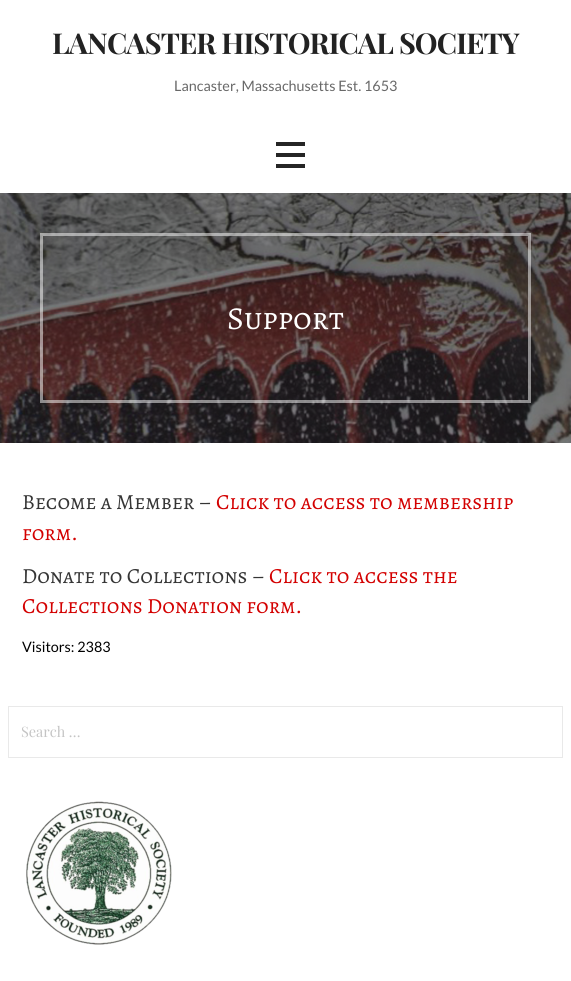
#include <cairo.h>
#include <math.h>
#include <stddef.h>


static void rgb(cairo_t *cr, int r, int g, int b)
{
	cairo_set_source_rgb(cr, r / 255.0, g / 255.0, b / 255.0);
}

static void face(cairo_t *cr, const char *family, double size, int italic, int bold)
{
	cairo_select_font_face(cr, family, italic ? CAIRO_FONT_SLANT_ITALIC : CAIRO_FONT_SLANT_NORMAL,
		bold ? CAIRO_FONT_WEIGHT_BOLD : CAIRO_FONT_WEIGHT_NORMAL);
	cairo_set_font_size(cr, size);
}

static void label(cairo_t *cr, double x, double y, const char *s)
{
	cairo_move_to(cr, x, y);
	cairo_show_text(cr, s);
}

static void tracked(cairo_t *cr, double x, double y, const char *s, double letter, double word)
{
	cairo_move_to(cr, x, y);
	while (*s) {
		char ch[5] = {0};
		int n = 0;
		do ch[n++] = *s++; while ((*s & 0xC0) == 0x80);
		cairo_show_text(cr, ch);
		cairo_rel_move_to(cr, letter + word * (*ch == ' '), 0);
	}
}

static void rect(cairo_t *cr, double x, double y, double w, double h)
{
	cairo_rectangle(cr, x, y, w, h);
	cairo_fill(cr);
}

static void image(cairo_t *cr, const char *path, double x, double y, double w, double h)
{
	cairo_surface_t *image = cairo_image_surface_create_from_png(path);
	cairo_save(cr);
	cairo_set_source_surface(cr, image, x, y);
	cairo_rectangle(cr, x, y, w, h);
	cairo_fill(cr);
	cairo_restore(cr);
	cairo_surface_destroy(image);
}

static void draw(cairo_t *cr) {
	rgb(cr, 255, 255, 255);
	cairo_paint(cr);
	face(cr, "Playfair Display", 28.75, 0, 1);
	rgb(cr, 34, 34, 34);
	tracked(cr, 52, 54, "LANCASTER HISTORICAL SOCIETY", -0.85, 0);
	face(cr, "Lato", 14.4, 0, 0);
	rgb(cr, 104, 104, 104);
	label(cr, 174, 91, "Lancaster, Massachusetts Est. 1653");
	rgb(cr, 37, 37, 37);
	rect(cr, 276, 142, 29, 4);
	rect(cr, 276, 153, 29, 4);
	rect(cr, 276, 164, 29, 4);
	image(cr, "image0.png", 0, 193, 571, 250);
	cairo_rectangle(cr, 41.5, 234.5, 488, 167);
	cairo_set_source_rgba(cr, 1, 1, 1, 0.5);
	cairo_set_line_width(cr, 3);
	cairo_stroke(cr);
	face(cr, "Alegreya SC", 32, 0, 0);
	rgb(cr, 255, 255, 255);
	label(cr, 227, 329, "Support");
	face(cr, "Alegreya SC", 21.6, 0, 0);
	rgb(cr, 53, 53, 53);
	label(cr, 22, 509, "Become a Member –");
	rgb(cr, 211, 0, 0);
	label(cr, 216, 509, "Click to access to membership");
	label(cr, 22, 540, "form.");
	rgb(cr, 53, 53, 53);
	label(cr, 22, 583, "Donate to Collections –");
	rgb(cr, 211, 0, 0);
	label(cr, 269, 583, "Click to access the");
	label(cr, 22, 613, "Collections Donation form.");
	face(cr, "Lato", 14.4, 0, 0);
	rgb(cr, 0, 0, 0);
	label(cr, 22, 652, "Visitors: 2383");
	cairo_rectangle(cr, 8.5, 706.5, 554, 51);
	rgb(cr, 233, 233, 233);
	cairo_set_line_width(cr, 1);
	cairo_stroke(cr);
	face(cr, "Playfair Display", 14.4, 0, 0);
	rgb(cr, 196, 196, 196);
	label(cr, 21, 737, "Search …");
	image(cr, "image1.png", 26, 801, 146, 144);
}

int main(void) {
	cairo_surface_t *surface = cairo_image_surface_create(CAIRO_FORMAT_RGB24, 571, 981);
	cairo_t *cr = cairo_create(surface);
	cairo_font_options_t *options = cairo_font_options_create();
	cairo_font_options_set_hint_metrics(options, CAIRO_HINT_METRICS_OFF);
	cairo_font_options_set_hint_style(options, CAIRO_HINT_STYLE_NONE);
	cairo_set_font_options(cr, options);
	cairo_set_miter_limit(cr, 4);
	draw(cr);
	cairo_surface_write_to_png(surface, "render.png");
	cairo_font_options_destroy(options);
	cairo_destroy(cr);
	cairo_surface_destroy(surface);
	return 0;
}
